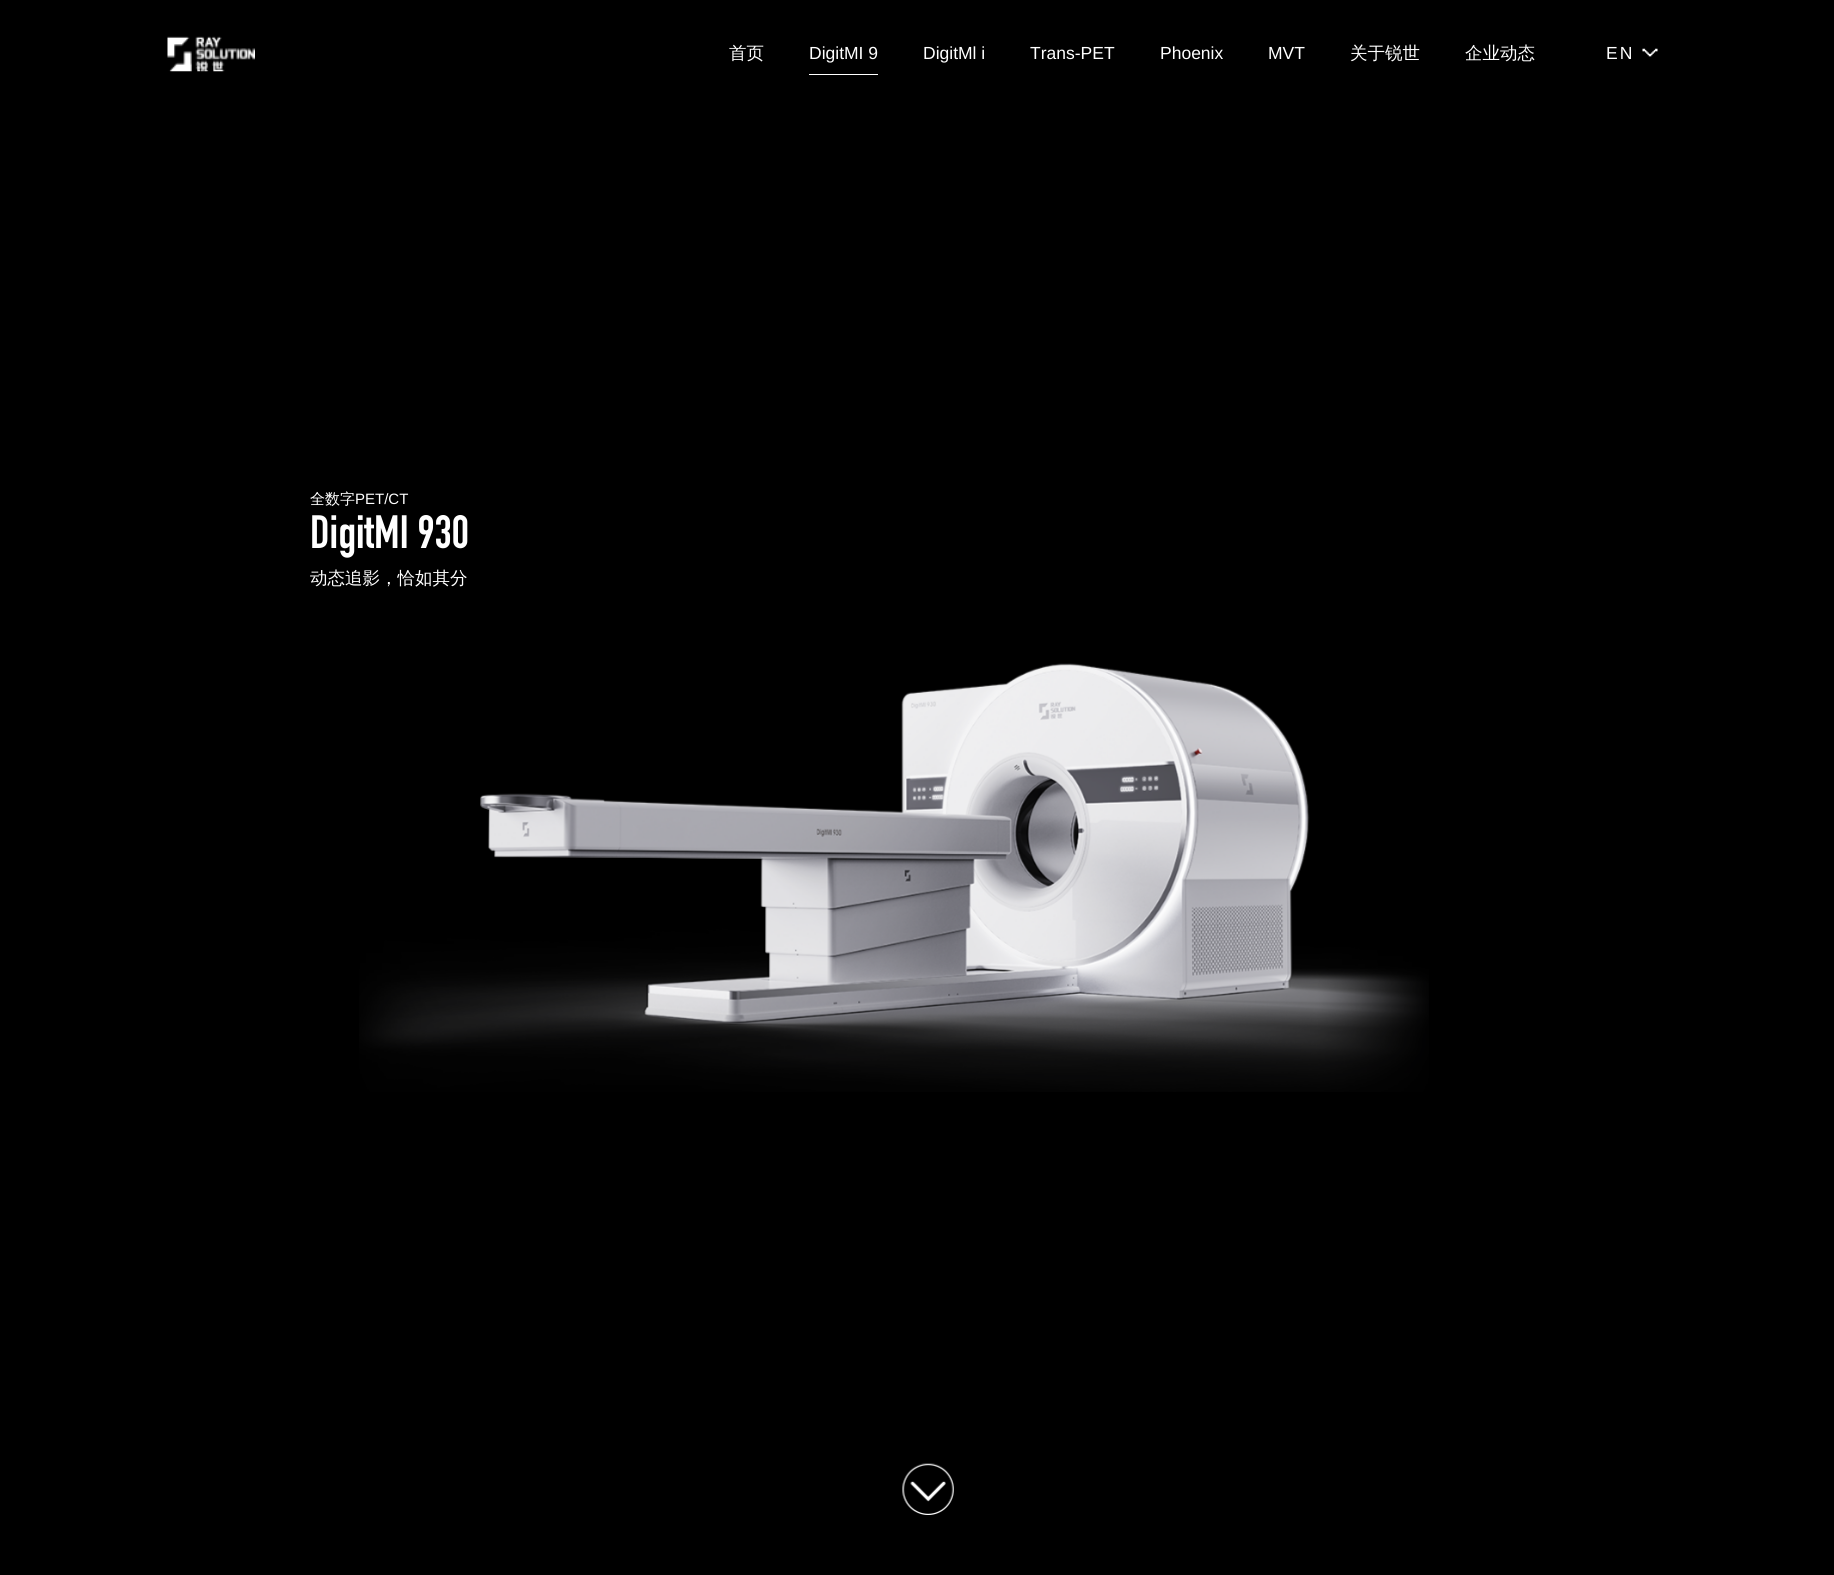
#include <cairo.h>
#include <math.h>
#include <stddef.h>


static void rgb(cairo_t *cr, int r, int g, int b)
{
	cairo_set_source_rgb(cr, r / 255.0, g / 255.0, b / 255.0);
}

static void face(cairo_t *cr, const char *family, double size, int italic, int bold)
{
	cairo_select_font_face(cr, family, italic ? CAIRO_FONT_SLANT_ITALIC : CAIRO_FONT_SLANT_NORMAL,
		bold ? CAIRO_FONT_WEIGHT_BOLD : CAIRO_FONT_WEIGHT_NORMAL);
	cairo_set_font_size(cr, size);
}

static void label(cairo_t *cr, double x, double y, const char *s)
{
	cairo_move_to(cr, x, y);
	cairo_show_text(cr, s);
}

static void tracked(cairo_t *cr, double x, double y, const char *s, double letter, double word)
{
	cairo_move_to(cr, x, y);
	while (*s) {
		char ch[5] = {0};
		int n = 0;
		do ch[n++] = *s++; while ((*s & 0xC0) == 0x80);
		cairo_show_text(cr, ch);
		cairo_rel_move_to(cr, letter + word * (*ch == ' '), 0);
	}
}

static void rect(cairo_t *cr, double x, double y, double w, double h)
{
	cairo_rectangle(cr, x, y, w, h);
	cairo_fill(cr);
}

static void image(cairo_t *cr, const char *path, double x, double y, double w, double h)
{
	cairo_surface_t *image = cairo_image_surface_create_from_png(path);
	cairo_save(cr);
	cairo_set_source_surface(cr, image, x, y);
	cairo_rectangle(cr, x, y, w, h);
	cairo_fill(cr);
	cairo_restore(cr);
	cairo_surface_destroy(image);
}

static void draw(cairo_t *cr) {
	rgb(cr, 0, 0, 0);
	cairo_paint(cr);
	image(cr, "image0.png", 167, 36, 88, 36);
	face(cr, "WenQuanYi Zen Hei Medium", 17.5, 0, 0);
	rgb(cr, 255, 255, 255);
	label(cr, 729, 59, "首页");
	face(cr, "Liberation Sans", 17.5, 0, 0);
	label(cr, 809, 59, "DigitMI 9");
	rect(cr, 809, 74, 69, 1);
	label(cr, 923, 59, "DigitMl i");
	label(cr, 1030, 59, "Trans-PET");
	label(cr, 1160, 59, "Phoenix");
	label(cr, 1268, 59, "MVT");
	face(cr, "WenQuanYi Zen Hei Medium", 17.5, 0, 0);
	label(cr, 1350, 59, "关于锐世");
	label(cr, 1465, 59, "企业动态");
	face(cr, "Liberation Sans", 17.5, 0, 0);
	tracked(cr, 1606, 59, "EN", 2, 0);
	image(cr, "image1.png", 1642, 48, 16, 9);
	face(cr, "WenQuanYi Zen Hei Medium", 15, 0, 0);
	label(cr, 310, 504, "全数字");
	face(cr, "Liberation Sans", 15, 0, 0);
	label(cr, 355, 504, "PET/CT");
	face(cr, "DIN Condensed", 46, 0, 1);
	label(cr, 310, 548, "DigitMI 930");
	face(cr, "WenQuanYi Zen Hei Medium", 17.5, 0, 0);
	label(cr, 310, 584, "动态追影，恰如其分");
	image(cr, "image2.png", 359, 663, 1070, 429);
	image(cr, "image3.png", 902, 1463, 52, 52);
}

int main(void) {
	cairo_surface_t *surface = cairo_image_surface_create(CAIRO_FORMAT_RGB24, 1834, 1575);
	cairo_t *cr = cairo_create(surface);
	cairo_font_options_t *options = cairo_font_options_create();
	cairo_font_options_set_hint_metrics(options, CAIRO_HINT_METRICS_OFF);
	cairo_font_options_set_hint_style(options, CAIRO_HINT_STYLE_NONE);
	cairo_set_font_options(cr, options);
	cairo_set_miter_limit(cr, 4);
	draw(cr);
	cairo_surface_write_to_png(surface, "render.png");
	cairo_font_options_destroy(options);
	cairo_destroy(cr);
	cairo_surface_destroy(surface);
	return 0;
}
